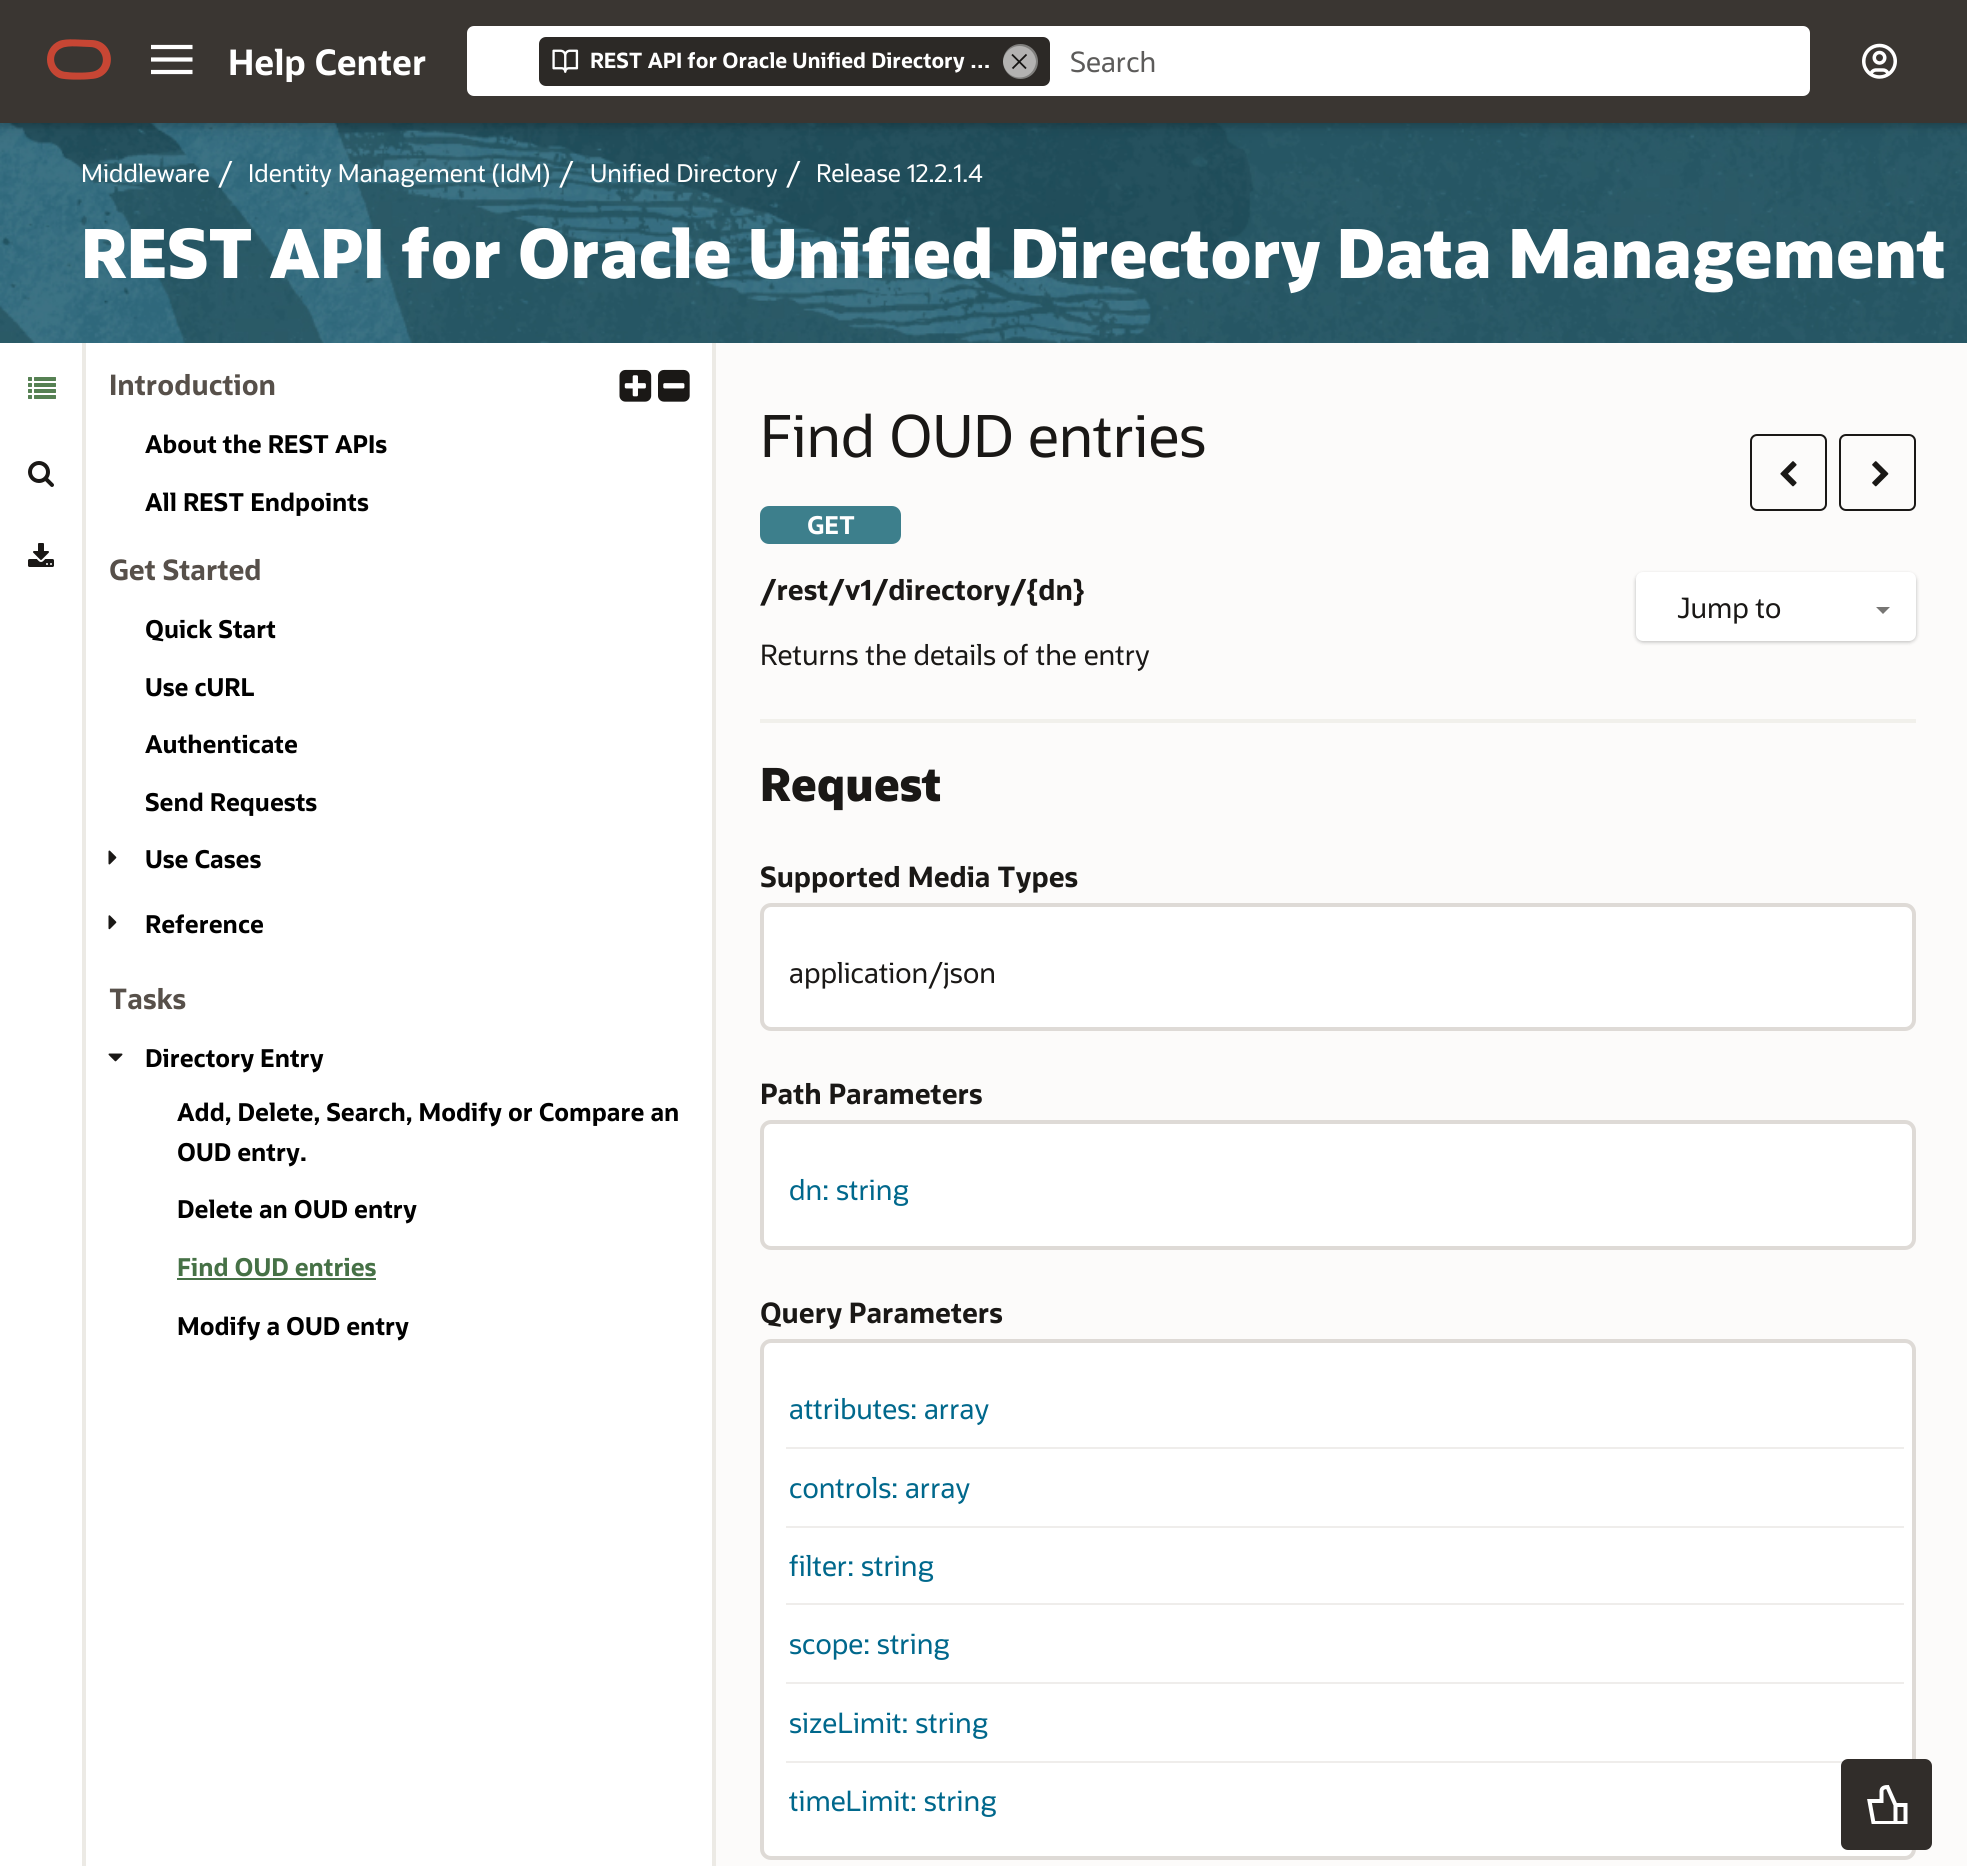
#include <cairo.h>
#include <math.h>
#include <stddef.h>


static void rgb(cairo_t *cr, int r, int g, int b)
{
	cairo_set_source_rgb(cr, r / 255.0, g / 255.0, b / 255.0);
}

static void face(cairo_t *cr, const char *family, double size, int italic, int bold)
{
	cairo_select_font_face(cr, family, italic ? CAIRO_FONT_SLANT_ITALIC : CAIRO_FONT_SLANT_NORMAL,
		bold ? CAIRO_FONT_WEIGHT_BOLD : CAIRO_FONT_WEIGHT_NORMAL);
	cairo_set_font_size(cr, size);
}

static void label(cairo_t *cr, double x, double y, const char *s)
{
	cairo_move_to(cr, x, y);
	cairo_show_text(cr, s);
}

static void rect(cairo_t *cr, double x, double y, double w, double h)
{
	cairo_rectangle(cr, x, y, w, h);
	cairo_fill(cr);
}

static void rrect(cairo_t *cr, double x, double y, double w, double h, double r)
{
	cairo_new_sub_path(cr);
	cairo_arc(cr, x + w - r, y + h - r, r, 0, M_PI / 2);
	cairo_arc(cr, x + r, y + h - r, r, M_PI / 2, M_PI);
	cairo_arc(cr, x + r, y + r, r, M_PI, 1.5 * M_PI);
	cairo_arc(cr, x + w - r, y + r, r, 1.5 * M_PI, 2 * M_PI);
	cairo_close_path(cr);
}

static void soft_shadow(cairo_t *cr, double x, double y, double w, double h, double r, double blur, double alpha)
{
	cairo_push_group_with_content(cr, CAIRO_CONTENT_ALPHA);
	cairo_set_operator(cr, CAIRO_OPERATOR_SOURCE);
	for (int i = 15; i >= -15 && fmin(w, h) + blur * i / 3 > 0; i -= 2) {
		double e = blur * i / 6;
		cairo_set_source_rgba(cr, 0, 0, 0, alpha * erfc((i - 1) / 8.5) / 2);
		rrect(cr, x - e, y - e, w + 2 * e, h + 2 * e, fmax(0, fmin(r + e + blur * .6, fmin(w, h) / 2 + e)));
		cairo_fill(cr);
	}
	cairo_pattern_t *soft = cairo_pop_group(cr);
	cairo_mask(cr, soft);
	cairo_pattern_destroy(soft);
}

static void image(cairo_t *cr, const char *path, double x, double y, double w, double h)
{
	cairo_surface_t *image = cairo_image_surface_create_from_png(path);
	cairo_save(cr);
	cairo_set_source_surface(cr, image, x, y);
	cairo_rectangle(cr, x, y, w, h);
	cairo_fill(cr);
	cairo_restore(cr);
	cairo_surface_destroy(image);
}

static void draw(cairo_t *cr) {
	cairo_pattern_t *gradient;
	rgb(cr, 255, 255, 255);
	cairo_paint(cr);
	image(cr, "image2.png", 0, 123, 1967, 220);
	rgb(cr, 0, 0, 0);
	soft_shadow(cr, 0, 4, 1967, 122, 0, 9, 0.15);
	rgb(cr, 58, 54, 50);
	rect(cr, 0, 0, 1967, 123);
	rgb(cr, 199, 70, 52);
	cairo_set_fill_rule(cr, CAIRO_FILL_RULE_EVEN_ODD);
	cairo_new_path(cr);
	cairo_move_to(cr, 91, 40);
	cairo_curve_to(cr, 117, 40, 118, 78, 91, 79);
	cairo_curve_to(cr, 83, 80, 65, 80, 59, 78);
	cairo_curve_to(cr, 43, 71, 43, 48, 59, 41);
	cairo_curve_to(cr, 66, 38, 82, 40, 91, 40);
	cairo_close_path(cr);
	cairo_move_to(cr, 90, 47);
	cairo_curve_to(cr, 84, 47, 68, 45, 62, 48);
	cairo_curve_to(cr, 49, 53, 53, 72, 67, 72);
	cairo_curve_to(cr, 73, 73, 90, 73, 95, 71);
	cairo_curve_to(cr, 108, 66, 104, 47, 90, 47);
	cairo_close_path(cr);
	cairo_fill(cr);
	cairo_save(cr);
	cairo_set_fill_rule(cr, CAIRO_FILL_RULE_WINDING);
	cairo_rectangle(cr, 151, 39, 42, 42);
	cairo_clip(cr);
	cairo_new_path(cr);
	cairo_move_to(cr, 150.5, 47);
	cairo_line_to(cr, 192.5, 47);
	cairo_move_to(cr, 150.5, 59.5);
	cairo_line_to(cr, 192.5, 59.5);
	cairo_move_to(cr, 150.5, 72);
	cairo_line_to(cr, 192.5, 72);
	rgb(cr, 255, 255, 255);
	cairo_set_line_width(cr, 4.2);
	cairo_stroke(cr);
	cairo_restore(cr);
	face(cr, "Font", 35, 0, 1);
	rgb(cr, 255, 255, 255);
	label(cr, 228, 75, "Help Center");
	rrect(cr, 467, 26, 1343, 70, 7);
	cairo_fill(cr);
	rgb(cr, 44, 41, 38);
	rrect(cr, 540, 38, 509, 47, 6);
	cairo_fill_preserve(cr);
	cairo_stroke(cr);
	image(cr, "image0.png", 552, 49, 27, 24);
	face(cr, "Font", 21, 0, 1);
	rgb(cr, 255, 255, 255);
	label(cr, 590, 68, "REST API for Oracle Unified Directory …");
	rgb(cr, 128, 127, 125);
	cairo_new_path(cr);
	cairo_arc(cr, 1020.5, 61.5, 18.5, 0, 2 * M_PI);
	cairo_fill_preserve(cr);
	rgb(cr, 44, 41, 38);
	cairo_stroke(cr);
	cairo_set_source_rgba(cr, 1, 1, 1, 0.4);
	cairo_set_fill_rule(cr, CAIRO_FILL_RULE_WINDING);
	cairo_new_path(cr);
	cairo_move_to(cr, 1019.5, 46);
	cairo_curve_to(cr, 1010.5, 46, 1003.5, 53, 1003, 61.5);
	cairo_curve_to(cr, 1003.5, 70.5, 1010.5, 77.5, 1019.5, 77.5);
	cairo_curve_to(cr, 1028.5, 77.5, 1035.5, 70.5, 1036, 61.5);
	cairo_curve_to(cr, 1035.5, 53, 1028.5, 46, 1019.5, 46);
	cairo_close_path(cr);
	cairo_fill(cr);
	cairo_new_path(cr);
	cairo_move_to(cr, 1012, 54.5);
	cairo_line_to(cr, 1026, 68.5);
	cairo_move_to(cr, 1026.5, 54.5);
	cairo_line_to(cr, 1012.5, 68.5);
	rgb(cr, 22, 21, 19);
	cairo_set_line_width(cr, 1.8);
	cairo_stroke(cr);
	face(cr, "Font", 28, 0, 0);
	rgb(cr, 92, 91, 90);
	label(cr, 1070, 72, "Search");
	image(cr, "image1.png", 1862, 43, 35, 36);
	gradient = cairo_pattern_create_linear(984, 122, 984, 131);
	cairo_pattern_add_color_stop_rgba(gradient, 0, 0, 0, 0, 0.12);
	cairo_pattern_add_color_stop_rgba(gradient, 1, 0, 0, 0, 0);
	cairo_set_source(cr, gradient);
	cairo_pattern_destroy(gradient);
	rect(cr, 0, 123, 1967, 6);
	face(cr, "Font", 24.5, 0, 0);
	rgb(cr, 255, 255, 255);
	label(cr, 81, 182, "Middleware");
	face(cr, "Font", 28, 0, 0);
	label(cr, 218, 182, "/");
	face(cr, "Font", 24.5, 0, 0);
	label(cr, 248, 182, "Identity Management (IdM)");
	face(cr, "Font", 28, 0, 0);
	label(cr, 559, 182, "/");
	face(cr, "Font", 24.5, 0, 0);
	label(cr, 590, 182, "Unified Directory");
	face(cr, "Font", 28, 0, 0);
	label(cr, 786, 182, "/");
	face(cr, "Font", 24.5, 0, 0);
	label(cr, 816, 182, "Release 12.2.1.4");
	face(cr, "Font ExtraBold", 67.4, 0, 0);
	label(cr, 81, 278, "REST API for Oracle Unified Directory Data Management");
	rgb(cr, 252, 251, 250);
	rect(cr, 716, 343, 1251, 1523);
	rgb(cr, 236, 234, 229);
	rect(cr, 82, 343, 4, 1523);
	image(cr, "image3.png", 28, 377, 28, 22);
	image(cr, "image4.png", 28, 461, 26, 26);
	image(cr, "image5.png", 28, 543, 26, 24);
	rect(cr, 712, 343, 4, 1523);
	face(cr, "Font", 28, 0, 1);
	rgb(cr, 87, 80, 74);
	label(cr, 109, 395, "Introduction");
	image(cr, "image6.png", 619, 369, 33, 33);
	image(cr, "image7.png", 658, 369, 32, 33);
	face(cr, "Font", 24.5, 0, 1);
	rgb(cr, 0, 0, 0);
	label(cr, 145, 453, "About the REST APIs");
	label(cr, 145, 511, "All REST Endpoints");
	face(cr, "Font", 28, 0, 1);
	rgb(cr, 87, 80, 74);
	label(cr, 109, 580, "Get Started");
	face(cr, "Font", 24.5, 0, 1);
	rgb(cr, 0, 0, 0);
	label(cr, 145, 638, "Quick Start");
	label(cr, 145, 696, "Use cURL");
	label(cr, 145, 753, "Authenticate");
	label(cr, 145, 811, "Send Requests");
	image(cr, "image8.png", 108, 850, 9, 15);
	label(cr, 145, 868, "Use Cases");
	image(cr, "image9.png", 108, 915, 9, 15);
	label(cr, 145, 933, "Reference");
	face(cr, "Font", 28, 0, 1);
	rgb(cr, 87, 80, 74);
	label(cr, 109, 1009, "Tasks");
	image(cr, "image10.png", 108, 1053, 15, 9);
	face(cr, "Font", 24.5, 0, 1);
	rgb(cr, 0, 0, 0);
	label(cr, 145, 1067, "Directory Entry");
	label(cr, 177, 1121, "Add, Delete, Search, Modify or Compare an");
	label(cr, 177, 1161, "OUD entry.");
	label(cr, 177, 1218, "Delete an OUD entry");
	rgb(cr, 70, 113, 70);
	label(cr, 177, 1276, "Find OUD entries");
	rect(cr, 177, 1278, 199, 2);
	rgb(cr, 0, 0, 0);
	label(cr, 177, 1335, "Modify a OUD entry");
	face(cr, "Font", 57.75, 0, 0);
	rgb(cr, 26, 24, 22);
	label(cr, 760, 457, "Find OUD entries");
	rgb(cr, 29, 29, 29);
	soft_shadow(cr, 1636, 574, 280, 68, 7, 2, 0.3);
	rgb(cr, 255, 255, 255);
	rrect(cr, 1636, 572, 280, 69, 7);
	cairo_fill(cr);
	face(cr, "Font", 28, 0, 0);
	rgb(cr, 26, 24, 22);
	label(cr, 1677, 618, "Jump to");
	rgb(cr, 119, 118, 116);
	cairo_new_path(cr);
	cairo_move_to(cr, 1876, 607);
	cairo_line_to(cr, 1890, 607);
	cairo_line_to(cr, 1883, 614);
	cairo_close_path(cr);
	cairo_fill(cr);
	rgb(cr, 61, 127, 140);
	rrect(cr, 760, 506, 141, 38, 9);
	cairo_fill(cr);
	face(cr, "Font", 24.5, 0, 1);
	rgb(cr, 255, 255, 255);
	label(cr, 807, 534, "GET");
	face(cr, "Font", 28, 0, 1);
	rgb(cr, 26, 24, 22);
	label(cr, 760, 600, "/rest/v1/directory/{dn}");
	rrect(cr, 1751, 435, 75, 75, 6);
	cairo_set_line_width(cr, 2);
	cairo_stroke(cr);
	image(cr, "image11.png", 1780, 461, 17, 26);
	rrect(cr, 1840, 435, 75, 75, 6);
	cairo_stroke(cr);
	image(cr, "image12.png", 1872, 461, 17, 26);
	face(cr, "Font", 28, 0, 0);
	label(cr, 760, 665, "Returns the details of the entry");
	rgb(cr, 241, 240, 235);
	rect(cr, 760, 719, 1156, 4);
	face(cr, "Font ExtraBold", 45.5, 0, 0);
	rgb(cr, 26, 24, 22);
	label(cr, 760, 801, "Request");
	face(cr, "Font", 28, 0, 1);
	label(cr, 760, 887, "Supported Media Types");
	rgb(cr, 255, 255, 255);
	rrect(cr, 762, 905, 1152, 124, 9);
	cairo_fill_preserve(cr);
	rgb(cr, 222, 218, 214);
	cairo_set_line_width(cr, 4);
	cairo_stroke(cr);
	face(cr, "Font", 28, 0, 0);
	rgb(cr, 26, 24, 22);
	label(cr, 789, 983, "application/json");
	face(cr, "Font", 28, 0, 1);
	label(cr, 760, 1104, "Path Parameters");
	rgb(cr, 255, 255, 255);
	rrect(cr, 762, 1122, 1152, 126, 9);
	cairo_fill_preserve(cr);
	rgb(cr, 222, 218, 214);
	cairo_stroke(cr);
	face(cr, "Font", 28, 0, 0);
	rgb(cr, 0, 104, 140);
	label(cr, 789, 1200, "dn: string");
	face(cr, "Font", 28, 0, 1);
	rgb(cr, 26, 24, 22);
	label(cr, 760, 1323, "Query Parameters");
	rgb(cr, 255, 255, 255);
	rrect(cr, 762, 1341, 1152, 517, 9);
	cairo_fill_preserve(cr);
	rgb(cr, 222, 218, 214);
	cairo_stroke(cr);
	face(cr, "Font", 28, 0, 0);
	rgb(cr, 0, 104, 140);
	label(cr, 789, 1419, "attributes: array");
	rgb(cr, 239, 237, 235);
	rect(cr, 786, 1447, 1118, 2);
	rgb(cr, 0, 104, 140);
	label(cr, 789, 1498, "controls: array");
	rgb(cr, 239, 237, 235);
	rect(cr, 786, 1526, 1118, 2);
	rgb(cr, 0, 104, 140);
	label(cr, 789, 1576, "filter: string");
	rgb(cr, 239, 237, 235);
	rect(cr, 786, 1603, 1118, 2);
	rgb(cr, 0, 104, 140);
	label(cr, 789, 1654, "scope: string");
	rgb(cr, 239, 237, 235);
	rect(cr, 786, 1682, 1118, 2);
	rgb(cr, 0, 104, 140);
	label(cr, 789, 1733, "sizeLimit: string");
	rgb(cr, 239, 237, 235);
	rect(cr, 786, 1761, 1057, 2);
	rgb(cr, 0, 104, 140);
	label(cr, 789, 1811, "timeLimit: string");
	rgb(cr, 49, 45, 42);
	rrect(cr, 1841, 1759, 91, 91, 7);
	cairo_fill(cr);
	cairo_save(cr);
	cairo_rectangle(cr, 1866, 1785, 42, 39);
	cairo_clip(cr);
	cairo_new_path(cr);
	cairo_move_to(cr, 1895.5, 1805);
	cairo_line_to(cr, 1887.5, 1787);
	cairo_curve_to(cr, 1882.5, 1787, 1881.5, 1789.5, 1881.5, 1791);
	cairo_line_to(cr, 1881.5, 1801);
	cairo_line_to(cr, 1869.5, 1801);
	cairo_line_to(cr, 1873.5, 1823);
	cairo_line_to(cr, 1895.5, 1823);
	cairo_move_to(cr, 1895.5, 1805);
	cairo_line_to(cr, 1905.5, 1805);
	cairo_line_to(cr, 1905.5, 1823);
	cairo_line_to(cr, 1895.5, 1823);
	cairo_move_to(cr, 1895.5, 1805);
	cairo_line_to(cr, 1895.5, 1823);
	rgb(cr, 255, 255, 255);
	cairo_stroke(cr);
	cairo_restore(cr);
}

int main(void) {
	cairo_surface_t *surface = cairo_image_surface_create(CAIRO_FORMAT_RGB24, 1967, 1866);
	cairo_t *cr = cairo_create(surface);
	cairo_font_options_t *options = cairo_font_options_create();
	cairo_font_options_set_hint_metrics(options, CAIRO_HINT_METRICS_OFF);
	cairo_font_options_set_hint_style(options, CAIRO_HINT_STYLE_NONE);
	cairo_set_font_options(cr, options);
	cairo_set_miter_limit(cr, 4);
	draw(cr);
	cairo_surface_write_to_png(surface, "render.png");
	cairo_font_options_destroy(options);
	cairo_destroy(cr);
	cairo_surface_destroy(surface);
	return 0;
}
